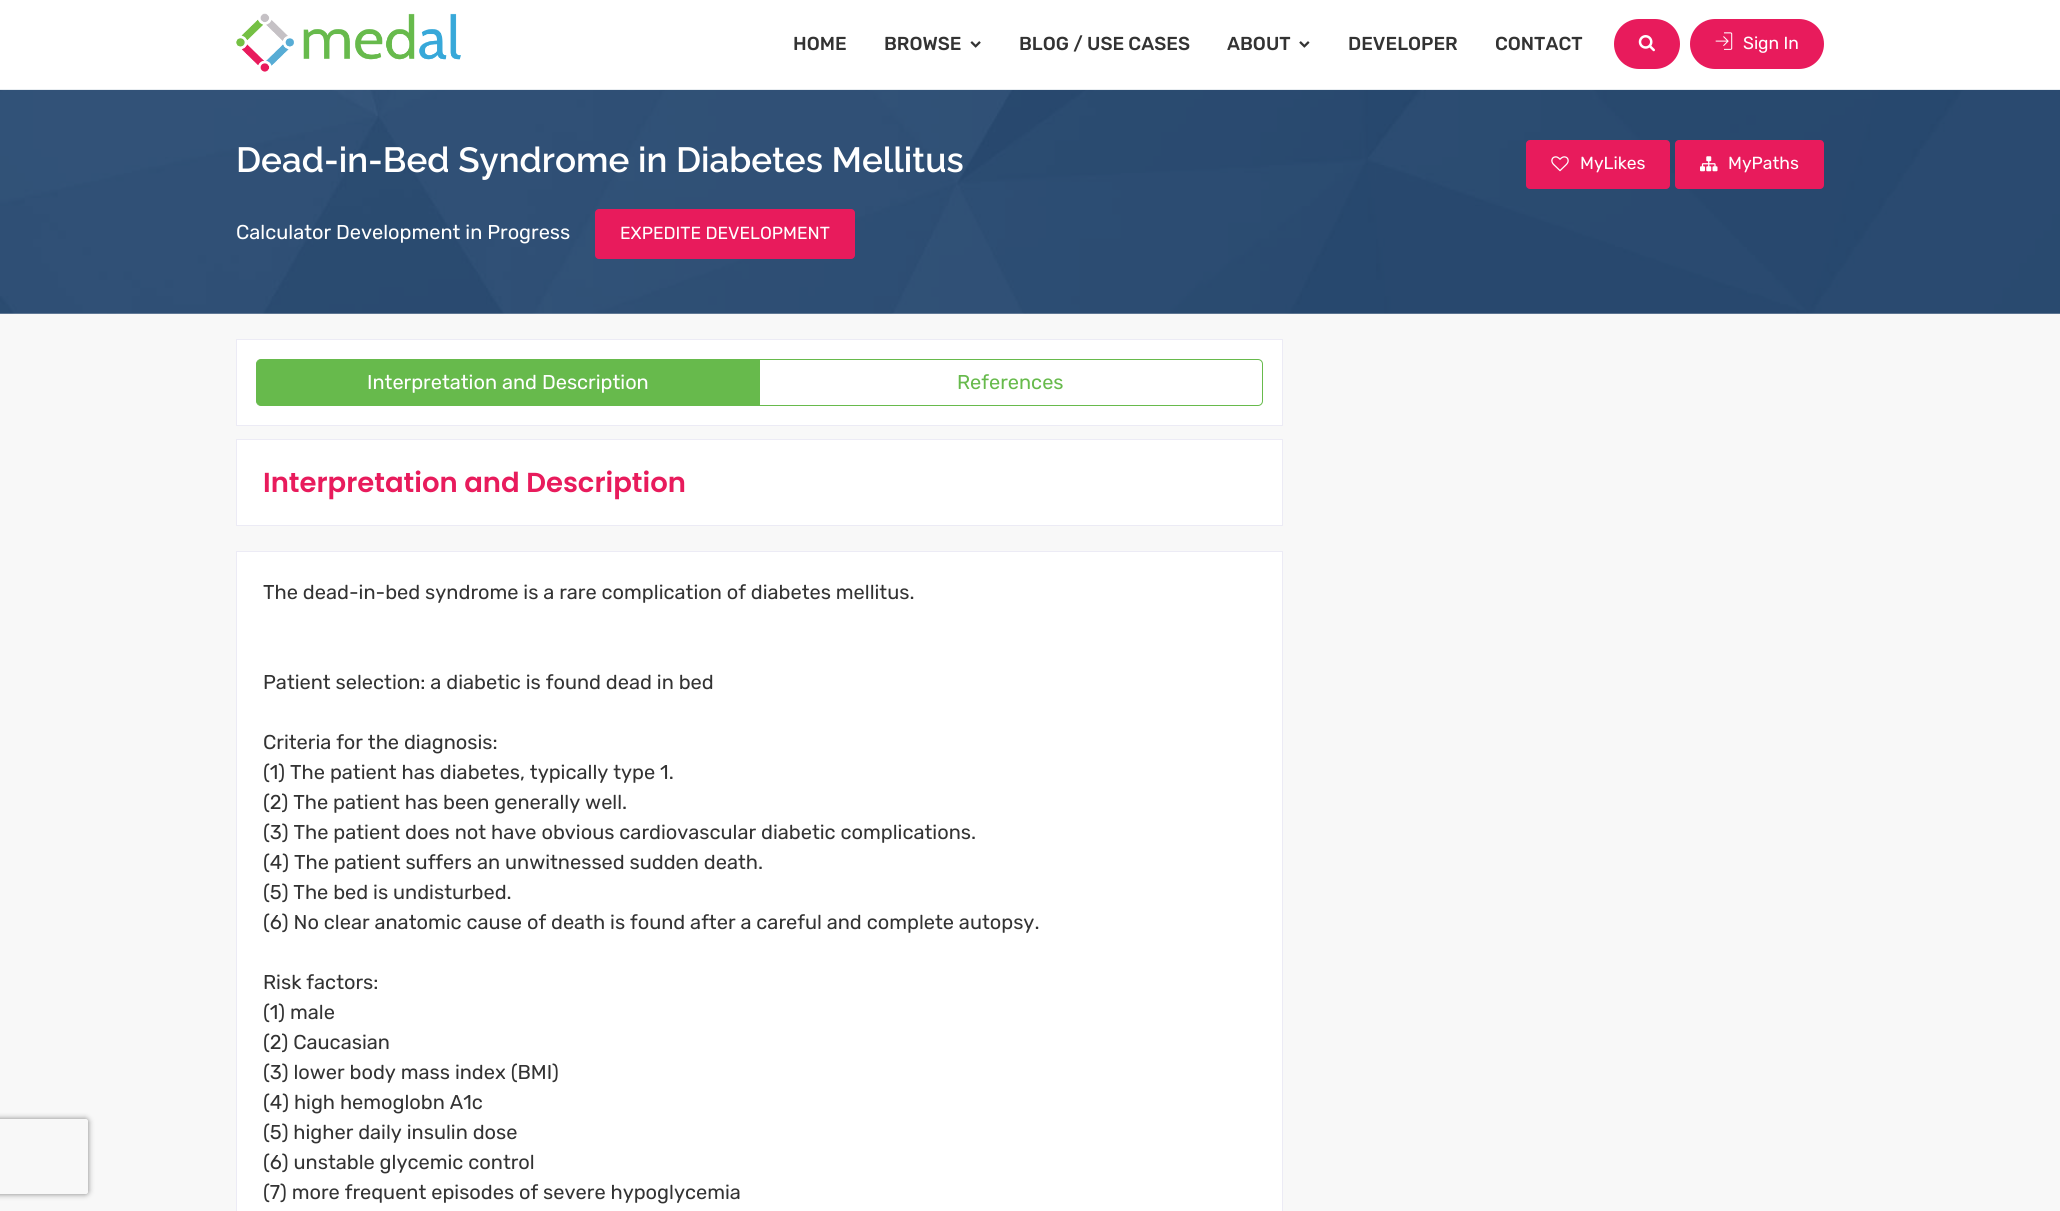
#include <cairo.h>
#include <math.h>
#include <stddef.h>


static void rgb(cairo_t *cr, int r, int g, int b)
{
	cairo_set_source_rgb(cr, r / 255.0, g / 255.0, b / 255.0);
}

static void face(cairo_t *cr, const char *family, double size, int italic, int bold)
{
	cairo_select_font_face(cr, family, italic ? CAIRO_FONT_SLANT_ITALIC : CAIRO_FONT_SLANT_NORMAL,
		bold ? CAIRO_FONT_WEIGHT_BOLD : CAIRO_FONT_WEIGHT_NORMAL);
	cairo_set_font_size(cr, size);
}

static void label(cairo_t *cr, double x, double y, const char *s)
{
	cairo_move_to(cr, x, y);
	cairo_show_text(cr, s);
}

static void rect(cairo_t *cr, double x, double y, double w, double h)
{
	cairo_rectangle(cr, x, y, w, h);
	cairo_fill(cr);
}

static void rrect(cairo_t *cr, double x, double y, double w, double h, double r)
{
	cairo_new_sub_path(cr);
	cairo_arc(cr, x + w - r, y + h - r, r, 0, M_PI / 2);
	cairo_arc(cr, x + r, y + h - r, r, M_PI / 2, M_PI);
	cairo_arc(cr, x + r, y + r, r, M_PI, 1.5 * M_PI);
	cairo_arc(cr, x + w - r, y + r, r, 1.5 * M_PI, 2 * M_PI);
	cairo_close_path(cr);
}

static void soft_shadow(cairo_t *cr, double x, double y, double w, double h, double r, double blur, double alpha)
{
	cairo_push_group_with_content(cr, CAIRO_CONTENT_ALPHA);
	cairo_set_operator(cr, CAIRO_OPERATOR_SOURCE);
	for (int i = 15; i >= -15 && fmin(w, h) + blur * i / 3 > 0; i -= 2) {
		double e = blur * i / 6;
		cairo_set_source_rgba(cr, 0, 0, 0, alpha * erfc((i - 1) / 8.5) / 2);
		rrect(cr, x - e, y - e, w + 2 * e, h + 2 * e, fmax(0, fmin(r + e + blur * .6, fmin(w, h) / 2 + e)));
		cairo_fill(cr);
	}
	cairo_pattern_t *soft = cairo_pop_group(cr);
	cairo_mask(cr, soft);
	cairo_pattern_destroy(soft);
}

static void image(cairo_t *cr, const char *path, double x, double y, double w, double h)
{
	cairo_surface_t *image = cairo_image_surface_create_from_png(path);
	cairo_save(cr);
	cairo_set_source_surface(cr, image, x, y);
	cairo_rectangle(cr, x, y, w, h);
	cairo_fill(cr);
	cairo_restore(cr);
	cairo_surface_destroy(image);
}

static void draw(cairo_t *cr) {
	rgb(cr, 248, 248, 248);
	cairo_paint(cr);
	cairo_save(cr);
	cairo_set_fill_rule(cr, CAIRO_FILL_RULE_EVEN_ODD);
	cairo_new_path(cr);
	cairo_move_to(cr, 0, 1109);
	cairo_line_to(cr, 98, 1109);
	cairo_line_to(cr, 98, 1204);
	cairo_line_to(cr, 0, 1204);
	cairo_close_path(cr);
	cairo_move_to(cr, -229.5, 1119);
	cairo_line_to(cr, 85.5, 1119);
	cairo_curve_to(cr, 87, 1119, 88, 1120, 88, 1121.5);
	cairo_line_to(cr, 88, 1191.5);
	cairo_curve_to(cr, 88, 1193, 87, 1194, 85.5, 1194);
	cairo_line_to(cr, -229.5, 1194);
	cairo_curve_to(cr, -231, 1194, -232, 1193, -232, 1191.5);
	cairo_line_to(cr, -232, 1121.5);
	cairo_curve_to(cr, -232, 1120, -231, 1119, -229.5, 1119);
	cairo_close_path(cr);
	cairo_clip(cr);
	rgb(cr, 128, 128, 128);
	soft_shadow(cr, -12, 1119, 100, 75, 2.5, 3, 1);
	cairo_restore(cr);
	rgb(cr, 255, 255, 255);
	rect(cr, 0, 0, 2060, 89);
	rgb(cr, 232, 237, 241);
	rect(cr, 0, 89, 2060, 1);
	image(cr, "image0.png", 236, 13, 225, 59);
	face(cr, "Rubik Medium", 18.75, 0, 0);
	rgb(cr, 51, 51, 51);
	label(cr, 793, 50, "HOME");
	label(cr, 884, 50, "BROWSE");
	image(cr, "image1.png", 970, 41, 11, 7);
	label(cr, 1019, 50, "BLOG / USE CASES");
	label(cr, 1227, 50, "ABOUT");
	image(cr, "image2.png", 1299, 41, 11, 7);
	label(cr, 1348, 50, "DEVELOPER");
	label(cr, 1495, 50, "CONTACT");
	rgb(cr, 232, 27, 92);
	rrect(cr, 1614, 19, 66, 50, 25);
	cairo_fill(cr);
	image(cr, "image3.png", 1638, 35, 17, 17);
	rrect(cr, 1690, 19, 134, 50, 25);
	cairo_fill(cr);
	image(cr, "image4.png", 1715, 32, 18, 18);
	face(cr, "Rubik", 17.5, 0, 0);
	rgb(cr, 255, 255, 255);
	label(cr, 1743, 49, "Sign In");
	image(cr, "image5.png", 0, 90, 2060, 224);
	face(cr, "Raleway SemiBold", 35, 0, 0);
	label(cr, 236, 172, "Dead-in-Bed Syndrome in Diabetes Mellitus");
	rgb(cr, 232, 27, 92);
	rrect(cr, 1526, 140, 144, 49, 4);
	cairo_fill(cr);
	image(cr, "image6.png", 1551, 156, 18, 16);
	face(cr, "Rubik", 17.5, 0, 0);
	rgb(cr, 255, 255, 255);
	label(cr, 1580, 169, "MyLikes");
	rgb(cr, 232, 27, 92);
	rrect(cr, 1675, 140, 149, 49, 4);
	cairo_fill(cr);
	image(cr, "image7.png", 1700, 156, 18, 16);
	rgb(cr, 255, 255, 255);
	label(cr, 1728, 169, "MyPaths");
	face(cr, "Rubik", 20, 0, 0);
	label(cr, 236, 239, "Calculator Development in Progress");
	rgb(cr, 232, 27, 92);
	rrect(cr, 595, 209, 260, 50, 4);
	cairo_fill(cr);
	face(cr, "Rubik", 17.5, 0, 0);
	rgb(cr, 255, 255, 255);
	label(cr, 620, 239, "EXPEDITE DEVELOPMENT");
	cairo_rectangle(cr, 236.5, 339.5, 1046, 86);
	cairo_fill_preserve(cr);
	rgb(cr, 236, 235, 245);
	cairo_set_line_width(cr, 1);
	cairo_stroke(cr);
	cairo_new_path(cr);
	cairo_move_to(cr, 759.5, 359.5);
	cairo_line_to(cr, 1258, 359.5);
	cairo_curve_to(cr, 1260.5, 359.5, 1262.5, 361.5, 1262.5, 364);
	cairo_line_to(cr, 1262.5, 401);
	cairo_curve_to(cr, 1262.5, 403.5, 1260.5, 405.5, 1258, 405.5);
	cairo_line_to(cr, 759.5, 405.5);
	cairo_close_path(cr);
	rgb(cr, 103, 186, 76);
	cairo_stroke(cr);
	cairo_new_path(cr);
	cairo_move_to(cr, 261, 359.5);
	cairo_line_to(cr, 759.5, 359.5);
	cairo_line_to(cr, 759.5, 405.5);
	cairo_line_to(cr, 261, 405.5);
	cairo_curve_to(cr, 258.5, 405.5, 256.5, 403.5, 256.5, 401);
	cairo_line_to(cr, 256.5, 364);
	cairo_curve_to(cr, 256.5, 361.5, 258.5, 359.5, 261, 359.5);
	cairo_close_path(cr);
	cairo_fill_preserve(cr);
	cairo_stroke(cr);
	face(cr, "Rubik", 20, 0, 0);
	rgb(cr, 255, 255, 255);
	label(cr, 367, 389, "Interpretation and Description");
	rgb(cr, 103, 186, 76);
	label(cr, 957, 389, "References");
	rgb(cr, 255, 255, 255);
	cairo_rectangle(cr, 236.5, 439.5, 1046, 86);
	cairo_fill_preserve(cr);
	rgb(cr, 236, 235, 245);
	cairo_stroke(cr);
	face(cr, "Poppins SemiBold", 27.5, 0, 0);
	rgb(cr, 232, 27, 92);
	label(cr, 263, 492, "Interpretation and Description");
	rgb(cr, 255, 255, 255);
	cairo_rectangle(cr, 236.5, 551.5, 1046, 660);
	cairo_fill_preserve(cr);
	rgb(cr, 236, 235, 245);
	cairo_stroke(cr);
	face(cr, "Rubik", 20, 0, 0);
	rgb(cr, 51, 51, 51);
	label(cr, 263, 599, "The dead-in-bed syndrome is a rare complication of diabetes mellitus.");
	label(cr, 263, 689, "Patient selection: a diabetic is found dead in bed");
	label(cr, 263, 749, "Criteria for the diagnosis:");
	label(cr, 263, 779, "(1) The patient has diabetes, typically type 1.");
	label(cr, 263, 809, "(2) The patient has been generally well.");
	label(cr, 263, 839, "(3) The patient does not have obvious cardiovascular diabetic complications.");
	label(cr, 263, 869, "(4) The patient suffers an unwitnessed sudden death.");
	label(cr, 263, 899, "(5) The bed is undisturbed.");
	label(cr, 263, 929, "(6) No clear anatomic cause of death is found after a careful and complete autopsy.");
	label(cr, 263, 989, "Risk factors:");
	label(cr, 263, 1019, "(1) male");
	label(cr, 263, 1049, "(2) Caucasian");
	label(cr, 263, 1079, "(3) lower body mass index (BMI)");
	label(cr, 263, 1109, "(4) high hemoglobn A1c");
	label(cr, 263, 1139, "(5) higher daily insulin dose");
	label(cr, 263, 1169, "(6) unstable glycemic control");
	label(cr, 263, 1199, "(7) more frequent episodes of severe hypoglycemia");
}

int main(void) {
	cairo_surface_t *surface = cairo_image_surface_create(CAIRO_FORMAT_RGB24, 2060, 1211);
	cairo_t *cr = cairo_create(surface);
	cairo_font_options_t *options = cairo_font_options_create();
	cairo_font_options_set_hint_metrics(options, CAIRO_HINT_METRICS_OFF);
	cairo_font_options_set_hint_style(options, CAIRO_HINT_STYLE_NONE);
	cairo_set_font_options(cr, options);
	cairo_set_miter_limit(cr, 4);
	draw(cr);
	cairo_surface_write_to_png(surface, "render.png");
	cairo_font_options_destroy(options);
	cairo_destroy(cr);
	cairo_surface_destroy(surface);
	return 0;
}
